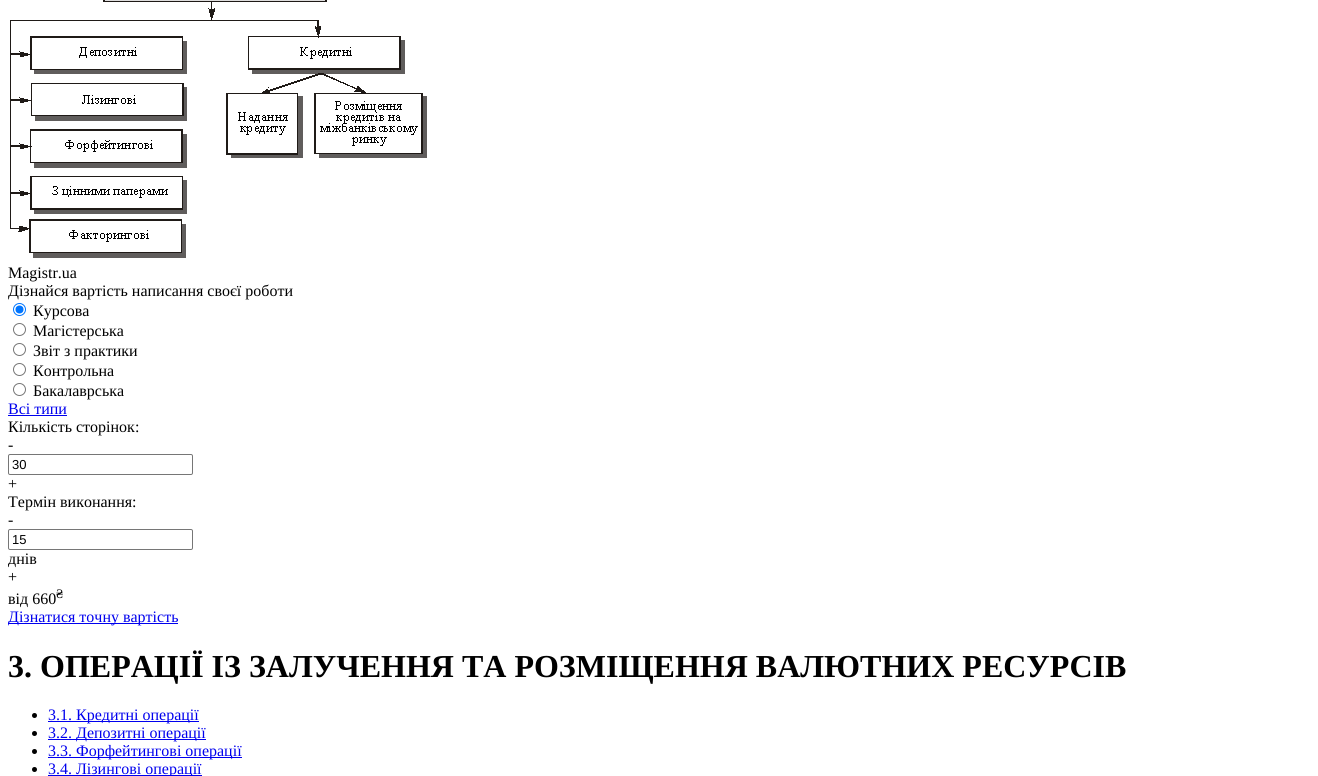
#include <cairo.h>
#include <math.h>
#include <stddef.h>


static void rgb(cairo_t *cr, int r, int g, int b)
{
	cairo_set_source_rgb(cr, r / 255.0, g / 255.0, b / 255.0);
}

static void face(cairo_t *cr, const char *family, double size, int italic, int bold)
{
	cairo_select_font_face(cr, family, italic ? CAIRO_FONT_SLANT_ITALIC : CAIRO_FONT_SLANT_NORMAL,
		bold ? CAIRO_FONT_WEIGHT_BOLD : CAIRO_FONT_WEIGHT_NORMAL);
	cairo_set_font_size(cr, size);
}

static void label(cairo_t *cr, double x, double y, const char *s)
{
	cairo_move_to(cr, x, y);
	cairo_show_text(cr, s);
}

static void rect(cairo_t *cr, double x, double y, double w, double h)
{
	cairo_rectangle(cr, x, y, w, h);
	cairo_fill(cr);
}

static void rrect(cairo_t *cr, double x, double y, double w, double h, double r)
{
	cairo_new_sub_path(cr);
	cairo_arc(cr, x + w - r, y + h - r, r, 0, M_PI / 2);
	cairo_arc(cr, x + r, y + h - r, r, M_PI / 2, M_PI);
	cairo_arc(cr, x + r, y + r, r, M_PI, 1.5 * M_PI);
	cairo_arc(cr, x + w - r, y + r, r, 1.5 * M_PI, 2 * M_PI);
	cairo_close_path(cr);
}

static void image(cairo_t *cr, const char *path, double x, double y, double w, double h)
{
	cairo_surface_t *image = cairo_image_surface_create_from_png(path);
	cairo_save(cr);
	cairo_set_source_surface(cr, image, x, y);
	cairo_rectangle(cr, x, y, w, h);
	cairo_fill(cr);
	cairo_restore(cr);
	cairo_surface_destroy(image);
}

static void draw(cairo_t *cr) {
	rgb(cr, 255, 255, 255);
	cairo_paint(cr);
	image(cr, "image0.png", 10, 0, 417, 258);
	face(cr, "Liberation Serif", 16, 0, 0);
	rgb(cr, 0, 0, 0);
	label(cr, 8, 278, "Magistr.ua");
	label(cr, 8, 296, "Дізнайся вартість написання своєї роботи");
	cairo_new_path(cr);
	cairo_arc(cr, 19.5, 309.5, 6, 0, 2 * M_PI);
	rgb(cr, 0, 117, 255);
	cairo_set_line_width(cr, 1);
	cairo_stroke(cr);
	cairo_arc(cr, 19.5, 309.5, 4, 0, 2 * M_PI);
	cairo_fill(cr);
	rgb(cr, 0, 0, 0);
	label(cr, 33, 316, "Курсова");
	cairo_new_path(cr);
	cairo_arc(cr, 19.5, 329.5, 6, 0, 2 * M_PI);
	rgb(cr, 118, 118, 118);
	cairo_stroke(cr);
	rgb(cr, 0, 0, 0);
	label(cr, 33, 336, "Магістерська");
	cairo_new_path(cr);
	cairo_arc(cr, 19.5, 349.5, 6, 0, 2 * M_PI);
	rgb(cr, 118, 118, 118);
	cairo_stroke(cr);
	rgb(cr, 0, 0, 0);
	label(cr, 33, 356, "Звіт з практики");
	cairo_new_path(cr);
	cairo_arc(cr, 19.5, 369.5, 6, 0, 2 * M_PI);
	rgb(cr, 118, 118, 118);
	cairo_stroke(cr);
	rgb(cr, 0, 0, 0);
	label(cr, 33, 376, "Контрольна");
	cairo_new_path(cr);
	cairo_arc(cr, 19.5, 389.5, 6, 0, 2 * M_PI);
	rgb(cr, 118, 118, 118);
	cairo_stroke(cr);
	rgb(cr, 0, 0, 0);
	label(cr, 33, 396, "Бакалаврська");
	rgb(cr, 0, 0, 238);
	label(cr, 8, 414, "Всі типи");
	rect(cr, 8, 415, 59, 1);
	rgb(cr, 0, 0, 0);
	label(cr, 8, 432, "Кількість сторінок:");
	label(cr, 8, 450, "-");
	rrect(cr, 8.5, 454.5, 184, 20, 1.5);
	rgb(cr, 118, 118, 118);
	cairo_stroke(cr);
	face(cr, "Liberation Sans", 13, 0, 0);
	rgb(cr, 0, 0, 0);
	label(cr, 12, 469, "30");
	face(cr, "Liberation Serif", 16, 0, 0);
	label(cr, 8, 489, "+");
	label(cr, 8, 507, "Термін виконання:");
	label(cr, 8, 525, "-");
	rrect(cr, 8.5, 529.5, 184, 20, 1.5);
	rgb(cr, 118, 118, 118);
	cairo_stroke(cr);
	face(cr, "Liberation Sans", 13, 0, 0);
	rgb(cr, 0, 0, 0);
	label(cr, 12, 544, "15");
	face(cr, "Liberation Serif", 16, 0, 0);
	label(cr, 8, 564, "днів");
	label(cr, 8, 582, "+");
	label(cr, 8, 604, "від 660");
	face(cr, "Liberation Serif", 13, 0, 0);
	label(cr, 56, 598, "₴");
	rgb(cr, 0, 0, 238);
	rect(cr, 8, 623, 170, 1);
	face(cr, "Liberation Serif", 16, 0, 0);
	label(cr, 8, 622, "Дізнатися точну вартість");
	face(cr, "Liberation Serif", 32, 0, 1);
	rgb(cr, 0, 0, 0);
	label(cr, 8, 677, "3. ОПЕРАЦІЇ ІЗ ЗАЛУЧЕННЯ ТА РОЗМІЩЕННЯ ВАЛЮТНИХ РЕСУРСІВ");
	cairo_new_path(cr);
	cairo_arc(cr, 34.5, 715.5, 2.5, 0, 2 * M_PI);
	cairo_fill(cr);
	rgb(cr, 0, 0, 238);
	rect(cr, 48, 721, 151, 1);
	face(cr, "Liberation Serif", 16, 0, 0);
	label(cr, 48, 720, "3.1. Кредитні операції");
	rgb(cr, 0, 0, 0);
	cairo_new_path(cr);
	cairo_arc(cr, 34.5, 733.5, 2.5, 0, 2 * M_PI);
	cairo_fill(cr);
	rgb(cr, 0, 0, 238);
	rect(cr, 48, 739, 158, 1);
	label(cr, 48, 738, "3.2. Депозитні операції");
	rgb(cr, 0, 0, 0);
	cairo_new_path(cr);
	cairo_arc(cr, 34.5, 751.5, 2.5, 0, 2 * M_PI);
	cairo_fill(cr);
	rgb(cr, 0, 0, 238);
	rect(cr, 48, 757, 194, 1);
	label(cr, 48, 756, "3.3. Форфейтингові операції");
	rgb(cr, 0, 0, 0);
	cairo_new_path(cr);
	cairo_arc(cr, 34.5, 769.5, 2.5, 0, 2 * M_PI);
	cairo_fill(cr);
	rgb(cr, 0, 0, 238);
	rect(cr, 48, 775, 154, 1);
	label(cr, 48, 774, "3.4. Лізингові операції");
}

int main(void) {
	cairo_surface_t *surface = cairo_image_surface_create(CAIRO_FORMAT_RGB24, 1318, 776);
	cairo_t *cr = cairo_create(surface);
	cairo_font_options_t *options = cairo_font_options_create();
	cairo_font_options_set_hint_metrics(options, CAIRO_HINT_METRICS_OFF);
	cairo_font_options_set_hint_style(options, CAIRO_HINT_STYLE_NONE);
	cairo_set_font_options(cr, options);
	cairo_set_miter_limit(cr, 4);
	draw(cr);
	cairo_surface_write_to_png(surface, "render.png");
	cairo_font_options_destroy(options);
	cairo_destroy(cr);
	cairo_surface_destroy(surface);
	return 0;
}
